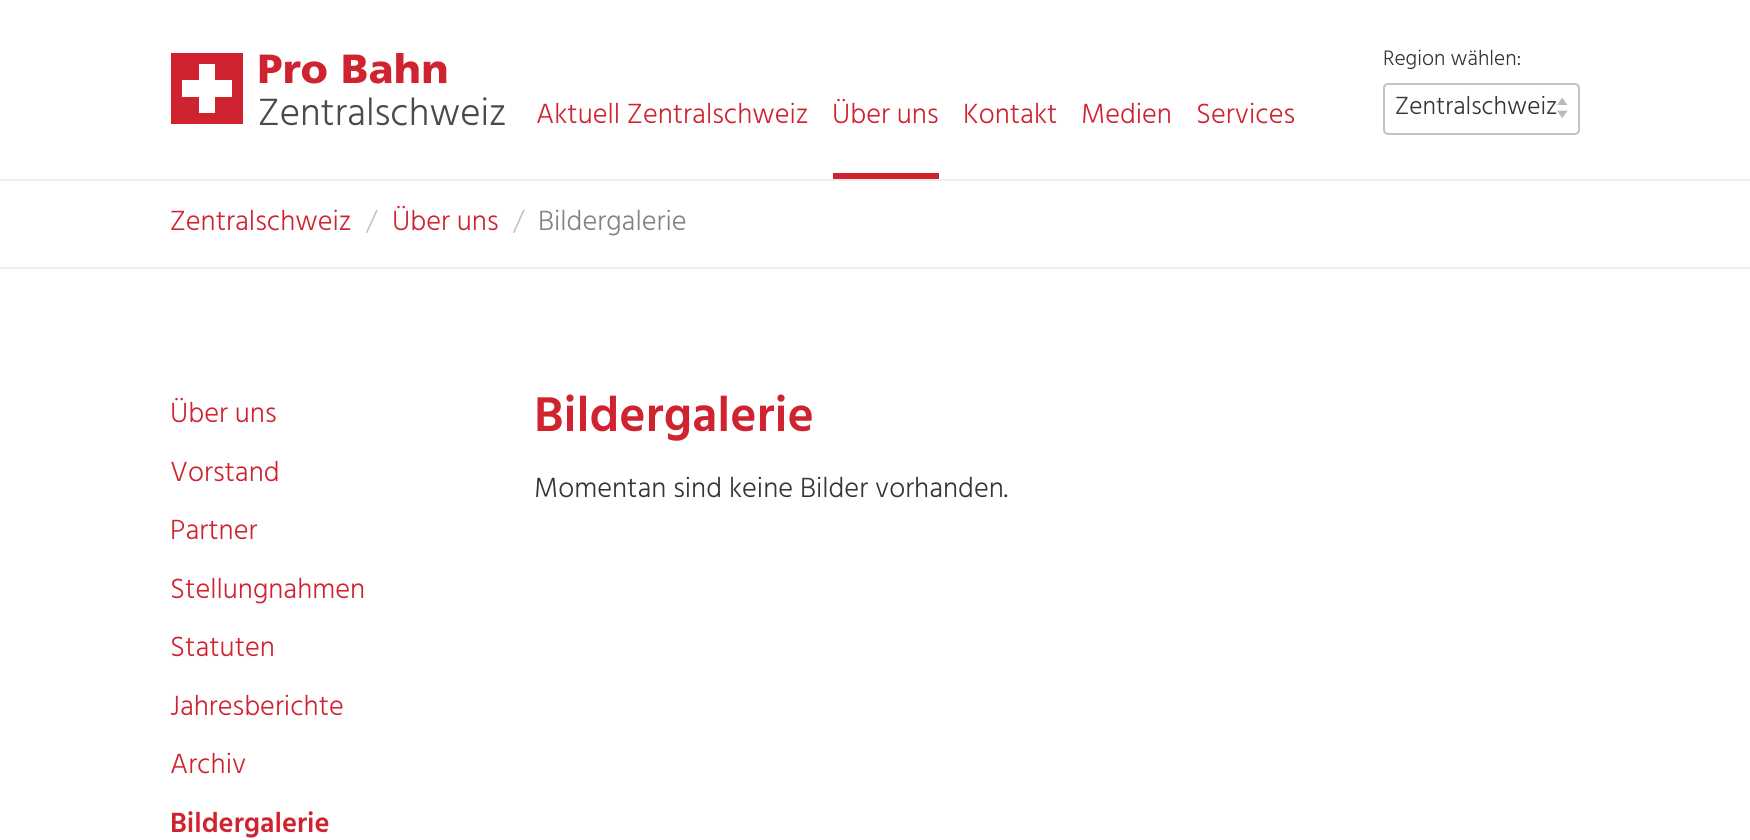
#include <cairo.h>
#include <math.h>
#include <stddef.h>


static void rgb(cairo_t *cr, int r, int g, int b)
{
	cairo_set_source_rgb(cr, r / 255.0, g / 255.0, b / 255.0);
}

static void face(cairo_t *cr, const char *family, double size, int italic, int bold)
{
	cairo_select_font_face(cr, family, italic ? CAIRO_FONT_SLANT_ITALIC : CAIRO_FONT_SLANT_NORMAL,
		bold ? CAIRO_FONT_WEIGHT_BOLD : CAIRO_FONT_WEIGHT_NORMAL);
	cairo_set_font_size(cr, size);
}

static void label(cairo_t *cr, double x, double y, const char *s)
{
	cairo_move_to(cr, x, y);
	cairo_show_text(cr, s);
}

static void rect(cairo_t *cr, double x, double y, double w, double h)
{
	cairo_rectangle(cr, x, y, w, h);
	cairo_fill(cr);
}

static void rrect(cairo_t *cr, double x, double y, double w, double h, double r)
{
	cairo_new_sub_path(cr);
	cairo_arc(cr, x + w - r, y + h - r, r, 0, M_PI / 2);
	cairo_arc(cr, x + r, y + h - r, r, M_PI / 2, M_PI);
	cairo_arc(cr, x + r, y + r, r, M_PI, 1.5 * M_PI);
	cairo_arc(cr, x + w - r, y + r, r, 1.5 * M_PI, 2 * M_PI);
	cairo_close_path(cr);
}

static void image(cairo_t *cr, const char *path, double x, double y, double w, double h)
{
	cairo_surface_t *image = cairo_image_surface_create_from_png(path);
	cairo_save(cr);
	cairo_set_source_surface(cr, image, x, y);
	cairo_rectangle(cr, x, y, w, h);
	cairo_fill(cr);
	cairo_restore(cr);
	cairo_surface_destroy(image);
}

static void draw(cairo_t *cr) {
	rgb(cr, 255, 255, 255);
	cairo_paint(cr);
	image(cr, "image0.png", 171, 53, 276, 71);
	face(cr, "Hind Light", 39, 0, 0);
	rgb(cr, 74, 74, 74);
	label(cr, 258, 125, "Zentralschweiz");
	face(cr, "Hind Light", 28.5, 0, 0);
	rgb(cr, 208, 35, 48);
	label(cr, 536, 123, "Aktuell Zentralschweiz");
	rect(cr, 833, 173, 106, 6);
	label(cr, 832, 123, "Über uns");
	label(cr, 963, 123, "Kontakt");
	label(cr, 1081, 123, "Medien");
	label(cr, 1196, 123, "Services");
	face(cr, "Hind Light", 21.5, 0, 0);
	rgb(cr, 53, 53, 53);
	label(cr, 1383, 65, "Region wählen:");
	image(cr, "image1.png", 1557, 98, 11, 20);
	rrect(cr, 1384, 84, 195, 50, 4);
	rgb(cr, 194, 194, 194);
	cairo_stroke(cr);
	face(cr, "Hind Light", 25.5, 0, 0);
	rgb(cr, 53, 53, 53);
	label(cr, 1395, 114, "Zentralschweiz");
	rgb(cr, 238, 238, 238);
	rect(cr, 0, 179, 1750, 2);
	rect(cr, 0, 267, 1750, 2);
	face(cr, "Hind Light", 28.5, 0, 0);
	rgb(cr, 208, 35, 48);
	label(cr, 170, 230, "Zentralschweiz");
	rgb(cr, 194, 194, 194);
	label(cr, 366, 230, "/");
	rgb(cr, 208, 35, 48);
	label(cr, 392, 230, "Über uns");
	rgb(cr, 194, 194, 194);
	label(cr, 513, 230, "/");
	rgb(cr, 130, 130, 130);
	label(cr, 538, 230, "Bildergalerie");
	rgb(cr, 208, 35, 48);
	label(cr, 170, 422, "Über uns");
	label(cr, 170, 481, "Vorstand");
	label(cr, 170, 539, "Partner");
	label(cr, 170, 598, "Stellungnahmen");
	label(cr, 170, 656, "Statuten");
	label(cr, 170, 715, "Jahresberichte");
	label(cr, 170, 773, "Archiv");
	face(cr, "Hind SemiBold", 28.5, 0, 0);
	label(cr, 170, 832, "Bildergalerie");
	face(cr, "Hind SemiBold", 50, 0, 0);
	label(cr, 534, 431, "Bildergalerie");
	face(cr, "Hind Light", 28.5, 0, 0);
	rgb(cr, 53, 53, 53);
	label(cr, 534, 497, "Momentan sind keine Bilder vorhanden.");
}

int main(void) {
	cairo_surface_t *surface = cairo_image_surface_create(CAIRO_FORMAT_RGB24, 1750, 840);
	cairo_t *cr = cairo_create(surface);
	cairo_font_options_t *options = cairo_font_options_create();
	cairo_font_options_set_hint_metrics(options, CAIRO_HINT_METRICS_OFF);
	cairo_font_options_set_hint_style(options, CAIRO_HINT_STYLE_NONE);
	cairo_set_font_options(cr, options);
	cairo_set_miter_limit(cr, 4);
	draw(cr);
	cairo_surface_write_to_png(surface, "render.png");
	cairo_font_options_destroy(options);
	cairo_destroy(cr);
	cairo_surface_destroy(surface);
	return 0;
}
